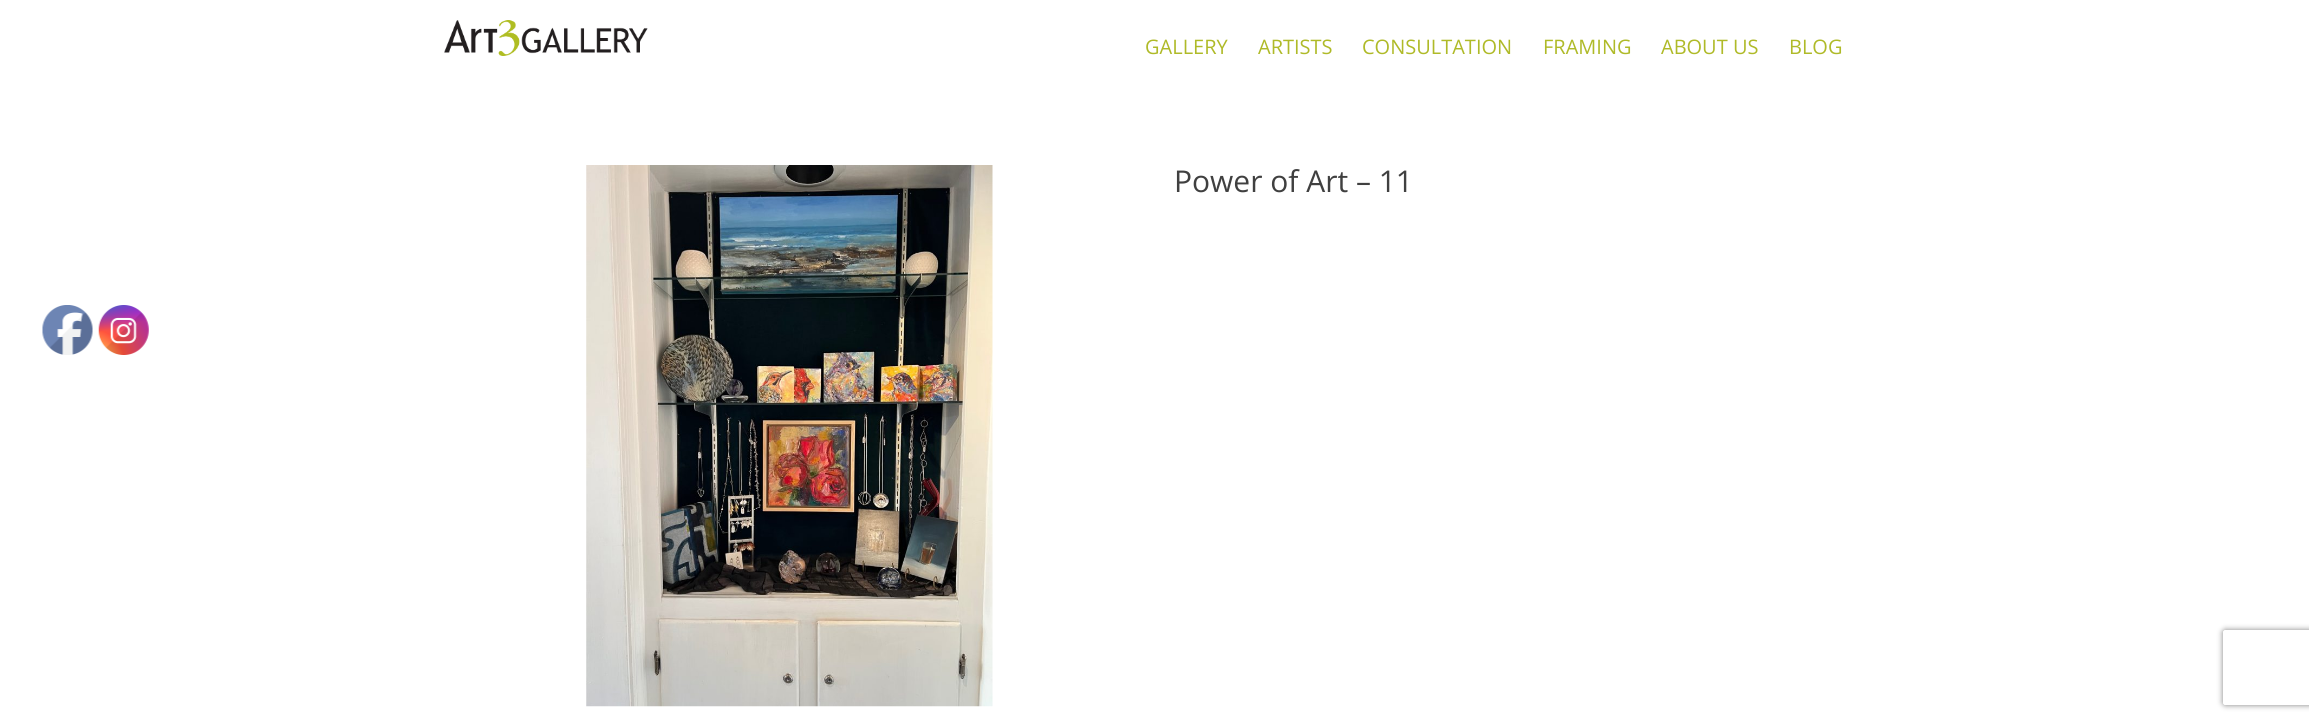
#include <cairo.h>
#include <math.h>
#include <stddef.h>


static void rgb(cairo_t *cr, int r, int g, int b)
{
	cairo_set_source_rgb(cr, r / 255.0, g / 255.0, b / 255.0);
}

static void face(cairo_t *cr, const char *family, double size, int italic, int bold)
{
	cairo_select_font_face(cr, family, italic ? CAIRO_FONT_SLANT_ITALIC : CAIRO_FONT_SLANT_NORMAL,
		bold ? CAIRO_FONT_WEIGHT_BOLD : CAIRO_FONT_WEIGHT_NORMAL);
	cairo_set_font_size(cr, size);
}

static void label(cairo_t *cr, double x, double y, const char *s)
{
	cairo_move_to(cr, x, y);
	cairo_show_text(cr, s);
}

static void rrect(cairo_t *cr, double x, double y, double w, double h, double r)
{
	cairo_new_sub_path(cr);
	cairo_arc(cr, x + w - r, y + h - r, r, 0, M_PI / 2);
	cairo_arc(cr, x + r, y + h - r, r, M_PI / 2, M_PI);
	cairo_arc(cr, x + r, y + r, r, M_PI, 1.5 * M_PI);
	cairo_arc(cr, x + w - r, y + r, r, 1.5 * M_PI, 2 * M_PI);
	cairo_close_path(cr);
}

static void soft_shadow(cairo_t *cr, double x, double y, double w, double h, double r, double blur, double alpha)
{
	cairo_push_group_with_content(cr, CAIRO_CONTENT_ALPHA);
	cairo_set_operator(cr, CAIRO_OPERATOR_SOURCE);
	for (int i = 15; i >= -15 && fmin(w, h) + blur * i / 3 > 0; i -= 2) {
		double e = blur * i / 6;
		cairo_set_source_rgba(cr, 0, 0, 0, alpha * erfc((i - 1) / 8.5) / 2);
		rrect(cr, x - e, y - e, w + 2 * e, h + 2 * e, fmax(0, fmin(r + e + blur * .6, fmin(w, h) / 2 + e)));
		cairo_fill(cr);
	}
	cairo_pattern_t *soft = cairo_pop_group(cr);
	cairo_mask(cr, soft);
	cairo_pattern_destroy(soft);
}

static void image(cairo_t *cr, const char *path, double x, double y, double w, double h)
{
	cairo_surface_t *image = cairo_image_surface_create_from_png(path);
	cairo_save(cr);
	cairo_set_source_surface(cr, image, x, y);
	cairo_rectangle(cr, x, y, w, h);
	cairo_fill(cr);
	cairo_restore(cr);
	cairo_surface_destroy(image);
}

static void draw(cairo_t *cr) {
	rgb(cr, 255, 255, 255);
	cairo_paint(cr);
	image(cr, "image0.png", 444, 20, 204, 36);
	face(cr, "Open Sans", 20, 0, 0);
	rgb(cr, 175, 186, 40);
	label(cr, 1145, 54, "GALLERY");
	label(cr, 1258, 54, "ARTISTS");
	label(cr, 1362, 54, "CONSULTATION");
	label(cr, 1543, 54, "FRAMING");
	label(cr, 1661, 54, "ABOUT US");
	label(cr, 1789, 54, "BLOG");
	image(cr, "image1.png", 586, 165, 407, 542);
	face(cr, "Open Sans", 30, 0, 0);
	rgb(cr, 64, 64, 64);
	label(cr, 1174, 192, "Power of Art – 11");
	image(cr, "image2.png", 42, 305, 51, 50);
	image(cr, "image3.png", 98, 305, 51, 50);
	cairo_save(cr);
	cairo_set_fill_rule(cr, CAIRO_FILL_RULE_EVEN_ODD);
	cairo_new_path(cr);
	cairo_move_to(cr, 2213, 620);
	cairo_line_to(cr, 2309, 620);
	cairo_line_to(cr, 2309, 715);
	cairo_line_to(cr, 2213, 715);
	cairo_close_path(cr);
	cairo_move_to(cr, 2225.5, 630);
	cairo_line_to(cr, 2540.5, 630);
	cairo_curve_to(cr, 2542, 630, 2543, 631, 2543, 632.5);
	cairo_line_to(cr, 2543, 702.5);
	cairo_curve_to(cr, 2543, 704, 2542, 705, 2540.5, 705);
	cairo_line_to(cr, 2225.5, 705);
	cairo_curve_to(cr, 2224, 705, 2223, 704, 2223, 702.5);
	cairo_line_to(cr, 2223, 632.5);
	cairo_curve_to(cr, 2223, 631, 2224, 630, 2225.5, 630);
	cairo_close_path(cr);
	cairo_clip(cr);
	rgb(cr, 128, 128, 128);
	soft_shadow(cr, 2223, 630, 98, 75, 2.5, 3, 1);
	cairo_restore(cr);
}

int main(void) {
	cairo_surface_t *surface = cairo_image_surface_create(CAIRO_FORMAT_RGB24, 2309, 722);
	cairo_t *cr = cairo_create(surface);
	cairo_font_options_t *options = cairo_font_options_create();
	cairo_font_options_set_hint_metrics(options, CAIRO_HINT_METRICS_OFF);
	cairo_font_options_set_hint_style(options, CAIRO_HINT_STYLE_NONE);
	cairo_set_font_options(cr, options);
	cairo_set_miter_limit(cr, 4);
	draw(cr);
	cairo_surface_write_to_png(surface, "render.png");
	cairo_font_options_destroy(options);
	cairo_destroy(cr);
	cairo_surface_destroy(surface);
	return 0;
}
